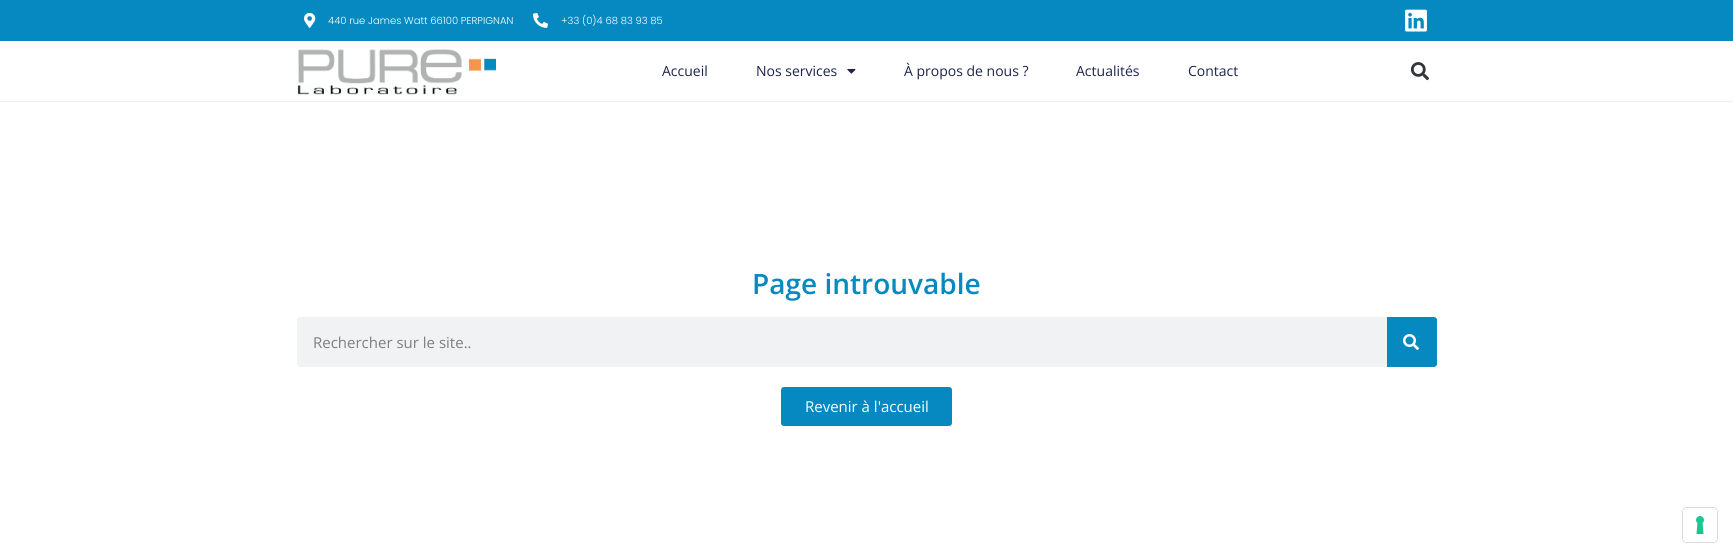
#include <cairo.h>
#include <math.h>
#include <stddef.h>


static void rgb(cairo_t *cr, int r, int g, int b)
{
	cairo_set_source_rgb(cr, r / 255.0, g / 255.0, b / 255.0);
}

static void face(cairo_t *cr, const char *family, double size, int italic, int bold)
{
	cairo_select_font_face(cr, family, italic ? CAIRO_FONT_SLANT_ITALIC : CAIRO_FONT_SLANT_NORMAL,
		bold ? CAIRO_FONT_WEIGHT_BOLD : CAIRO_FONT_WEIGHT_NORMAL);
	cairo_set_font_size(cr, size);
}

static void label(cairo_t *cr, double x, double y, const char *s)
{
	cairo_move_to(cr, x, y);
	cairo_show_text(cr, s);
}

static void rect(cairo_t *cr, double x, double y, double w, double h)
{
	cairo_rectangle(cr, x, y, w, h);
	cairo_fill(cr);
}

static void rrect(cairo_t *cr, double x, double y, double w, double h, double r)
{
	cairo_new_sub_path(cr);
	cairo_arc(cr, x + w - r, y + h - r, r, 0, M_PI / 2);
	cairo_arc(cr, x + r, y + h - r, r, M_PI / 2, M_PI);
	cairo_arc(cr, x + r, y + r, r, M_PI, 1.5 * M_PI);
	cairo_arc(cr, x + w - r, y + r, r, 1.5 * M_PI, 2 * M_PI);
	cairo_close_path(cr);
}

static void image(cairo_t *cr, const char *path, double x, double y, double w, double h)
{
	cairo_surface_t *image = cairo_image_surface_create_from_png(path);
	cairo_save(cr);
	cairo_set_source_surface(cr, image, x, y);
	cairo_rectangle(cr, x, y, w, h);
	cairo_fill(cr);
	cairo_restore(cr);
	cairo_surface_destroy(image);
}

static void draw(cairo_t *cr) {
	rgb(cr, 255, 255, 255);
	cairo_paint(cr);
	rgb(cr, 241, 241, 241);
	rect(cr, 0, 101, 1733, 1);
	rgb(cr, 6, 137, 193);
	rect(cr, 0, 0, 1733, 41);
	image(cr, "image0.png", 304, 13, 12, 15);
	face(cr, "Poppins Light", 10, 0, 0);
	rgb(cr, 255, 255, 255);
	label(cr, 328, 24, "440 rue James Watt 66100 PERPIGNAN");
	image(cr, "image1.png", 533, 13, 15, 15);
	label(cr, 561, 24, "+33 (0)4 68 83 93 85");
	image(cr, "image2.png", 1405, 9, 22, 23);
	image(cr, "image3.png", 297, 49, 199, 46);
	face(cr, "Open Sans", 14, 0, 0);
	rgb(cr, 28, 36, 75);
	label(cr, 662, 76, "Accueil");
	label(cr, 756, 76, "Nos services");
	image(cr, "image4.png", 847, 69, 9, 5);
	label(cr, 904, 76, "À propos de nous ?");
	label(cr, 1076, 76, "Actualités");
	label(cr, 1188, 76, "Contact");
	image(cr, "image5.png", 1410, 62, 19, 19);
	face(cr, "Open Sans SemiBold", 28, 0, 0);
	rgb(cr, 6, 137, 193);
	label(cr, 752, 294, "Page introuvable");
	rgb(cr, 241, 242, 243);
	rrect(cr, 297, 317, 1140, 50, 3);
	cairo_fill(cr);
	face(cr, "Open Sans", 15, 0, 0);
	rgb(cr, 127, 127, 128);
	label(cr, 313, 348, "Rechercher sur le site..");
	rgb(cr, 6, 137, 193);
	cairo_new_path(cr);
	cairo_move_to(cr, 1387, 317);
	cairo_line_to(cr, 1434, 317);
	cairo_curve_to(cr, 1435.5, 317, 1437, 318.5, 1437, 320);
	cairo_line_to(cr, 1437, 364);
	cairo_curve_to(cr, 1437, 365.5, 1435.5, 367, 1434, 367);
	cairo_line_to(cr, 1387, 367);
	cairo_close_path(cr);
	cairo_fill(cr);
	image(cr, "image6.png", 1403, 334, 16, 16);
	rrect(cr, 781, 387, 171, 39, 3);
	cairo_fill(cr);
	rgb(cr, 255, 255, 255);
	label(cr, 805, 412, "Revenir à l'accueil");
	rrect(cr, 1682.5, 507.5, 35, 35, 4.5);
	rgb(cr, 217, 217, 217);
	cairo_set_line_width(cr, 1);
	cairo_stroke(cr);
	rgb(cr, 255, 255, 255);
	rrect(cr, 1683, 508, 34, 34, 4);
	cairo_fill(cr);
	image(cr, "image7.png", 1696, 516, 8, 18);
}

int main(void) {
	cairo_surface_t *surface = cairo_image_surface_create(CAIRO_FORMAT_RGB24, 1733, 558);
	cairo_t *cr = cairo_create(surface);
	cairo_font_options_t *options = cairo_font_options_create();
	cairo_font_options_set_hint_metrics(options, CAIRO_HINT_METRICS_OFF);
	cairo_font_options_set_hint_style(options, CAIRO_HINT_STYLE_NONE);
	cairo_set_font_options(cr, options);
	cairo_set_miter_limit(cr, 4);
	draw(cr);
	cairo_surface_write_to_png(surface, "render.png");
	cairo_font_options_destroy(options);
	cairo_destroy(cr);
	cairo_surface_destroy(surface);
	return 0;
}
